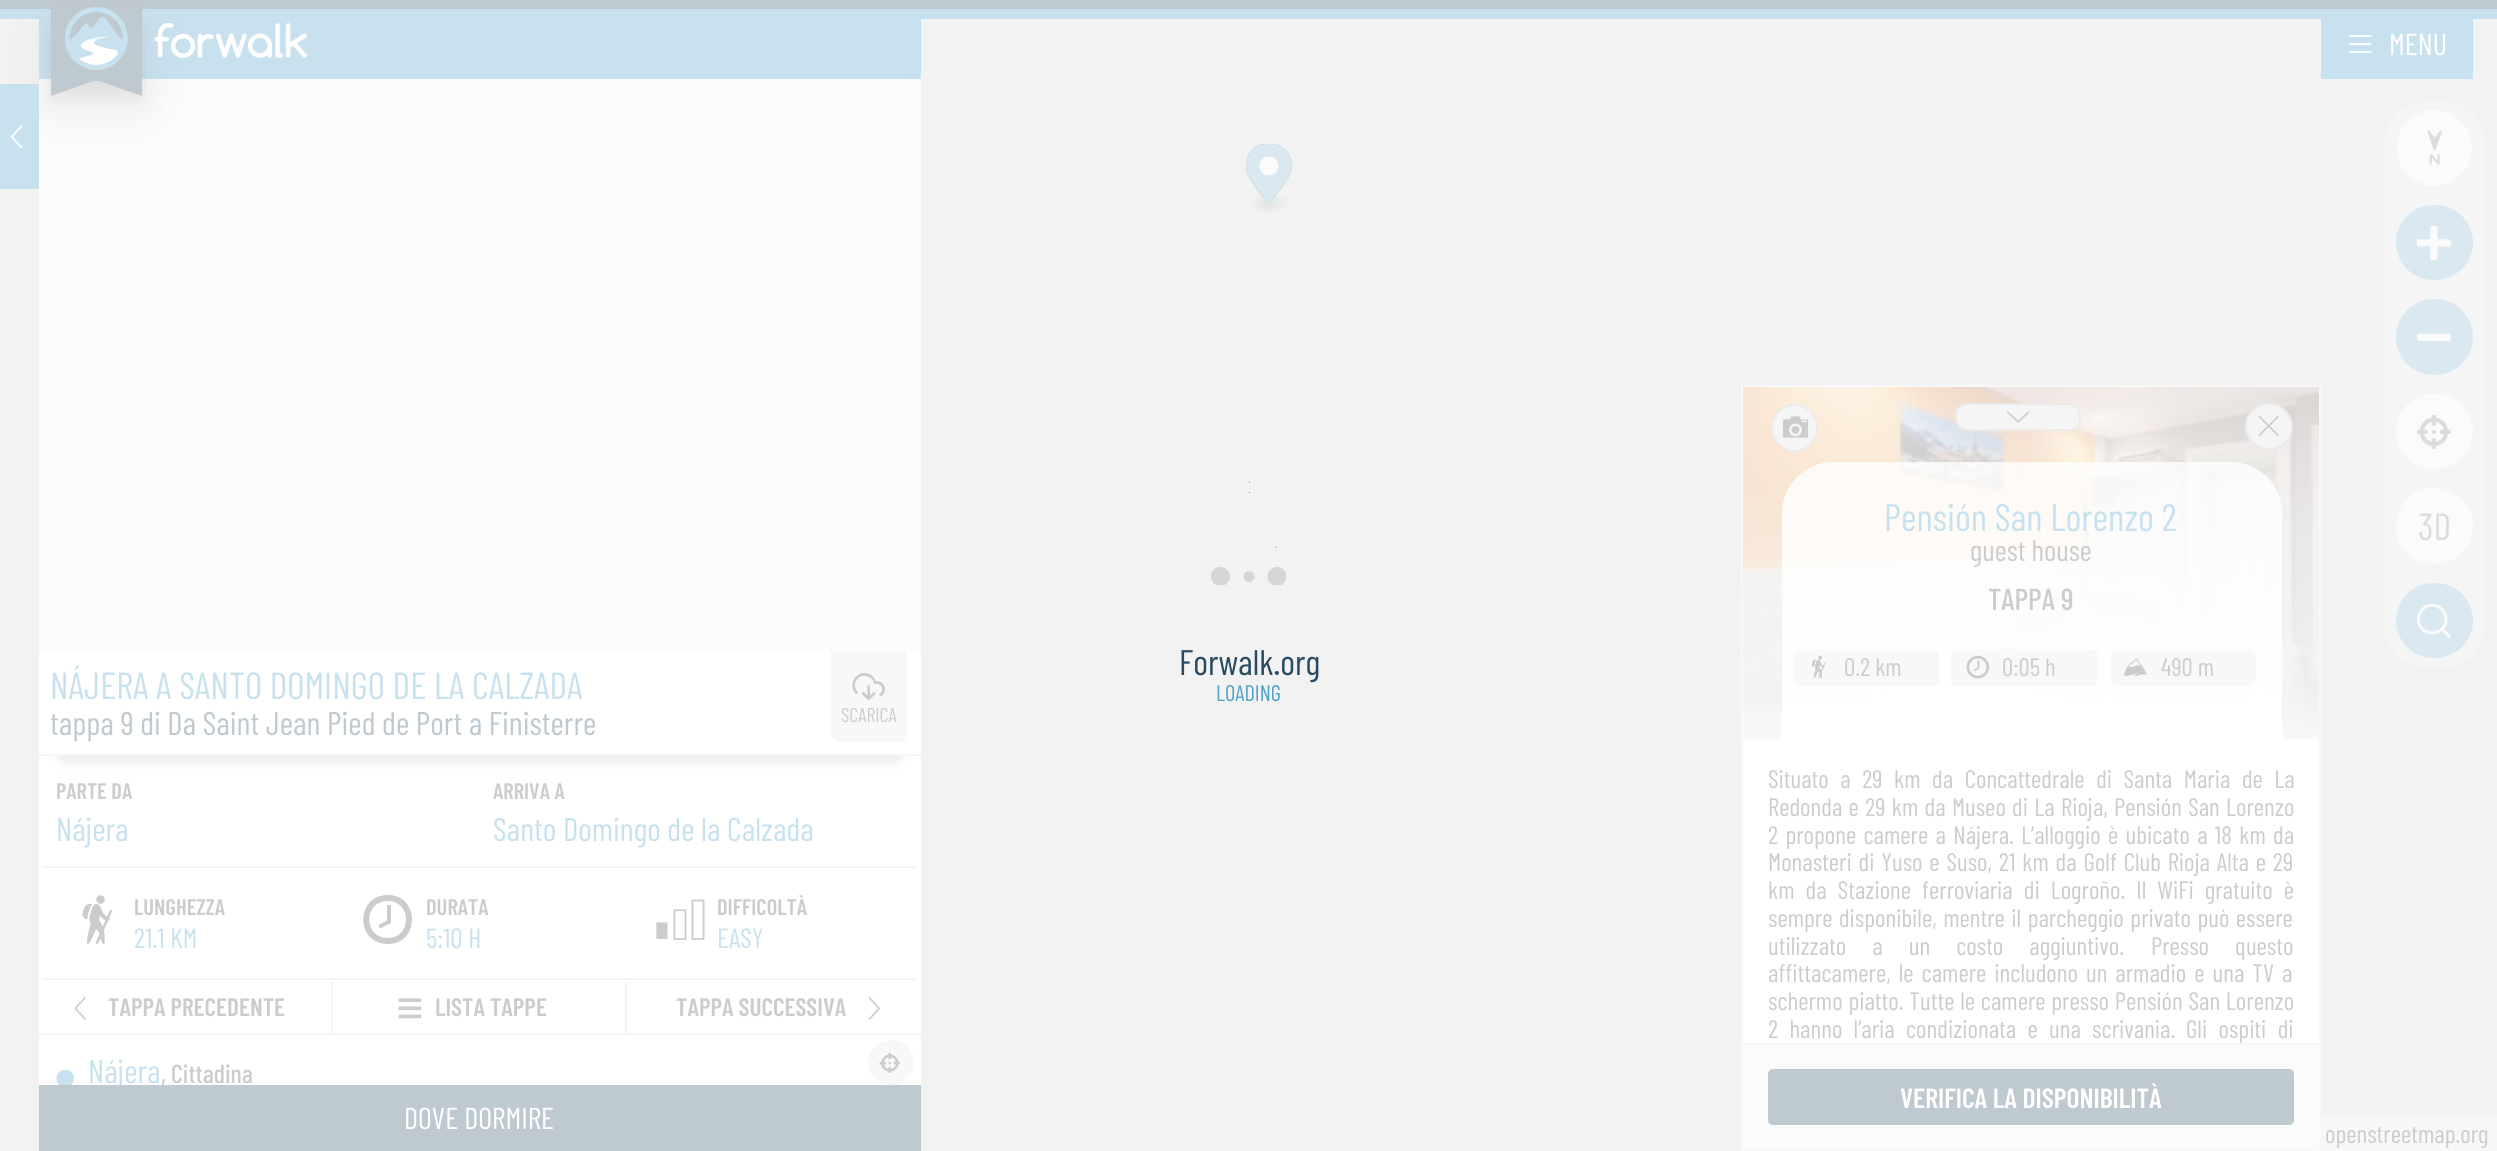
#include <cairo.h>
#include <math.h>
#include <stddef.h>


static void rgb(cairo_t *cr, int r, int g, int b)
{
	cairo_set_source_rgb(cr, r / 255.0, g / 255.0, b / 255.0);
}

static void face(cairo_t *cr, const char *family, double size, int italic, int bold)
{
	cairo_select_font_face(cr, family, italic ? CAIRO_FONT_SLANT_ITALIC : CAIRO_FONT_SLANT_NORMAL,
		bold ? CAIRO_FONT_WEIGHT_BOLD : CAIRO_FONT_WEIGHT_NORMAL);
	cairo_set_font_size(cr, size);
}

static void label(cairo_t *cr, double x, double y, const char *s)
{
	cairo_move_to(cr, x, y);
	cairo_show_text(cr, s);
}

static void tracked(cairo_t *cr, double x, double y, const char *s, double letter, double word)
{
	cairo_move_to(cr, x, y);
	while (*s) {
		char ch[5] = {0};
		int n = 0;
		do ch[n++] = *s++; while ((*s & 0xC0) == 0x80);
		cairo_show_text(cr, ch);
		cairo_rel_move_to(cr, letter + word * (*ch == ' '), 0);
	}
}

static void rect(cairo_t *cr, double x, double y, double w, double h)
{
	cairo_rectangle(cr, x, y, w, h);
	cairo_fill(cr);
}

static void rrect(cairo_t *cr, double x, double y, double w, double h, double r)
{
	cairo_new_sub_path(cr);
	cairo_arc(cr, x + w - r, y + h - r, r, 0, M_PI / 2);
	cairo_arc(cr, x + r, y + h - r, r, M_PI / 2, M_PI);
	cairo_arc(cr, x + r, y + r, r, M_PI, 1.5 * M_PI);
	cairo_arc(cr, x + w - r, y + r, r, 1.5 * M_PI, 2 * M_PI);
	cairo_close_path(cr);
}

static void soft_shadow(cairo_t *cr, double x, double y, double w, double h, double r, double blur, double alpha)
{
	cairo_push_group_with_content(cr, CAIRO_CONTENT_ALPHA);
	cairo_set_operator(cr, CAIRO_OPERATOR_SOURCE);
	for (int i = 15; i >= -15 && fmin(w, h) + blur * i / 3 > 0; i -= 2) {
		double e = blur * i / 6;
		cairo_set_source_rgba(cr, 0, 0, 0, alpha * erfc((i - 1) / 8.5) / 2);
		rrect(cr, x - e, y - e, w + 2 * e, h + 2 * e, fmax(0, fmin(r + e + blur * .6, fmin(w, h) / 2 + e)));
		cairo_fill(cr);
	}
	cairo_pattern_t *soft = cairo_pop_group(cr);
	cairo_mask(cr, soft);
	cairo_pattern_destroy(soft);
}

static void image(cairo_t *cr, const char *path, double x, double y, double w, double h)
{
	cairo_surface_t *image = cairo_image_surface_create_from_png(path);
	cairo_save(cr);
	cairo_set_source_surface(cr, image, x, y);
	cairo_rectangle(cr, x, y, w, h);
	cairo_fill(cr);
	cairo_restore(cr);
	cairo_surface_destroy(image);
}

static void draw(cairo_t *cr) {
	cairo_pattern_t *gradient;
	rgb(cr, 242, 242, 242);
	cairo_paint(cr);
	rgb(cr, 200, 225, 239);
	rect(cr, 0, 9, 2497, 10);
	rgb(cr, 191, 201, 208);
	rect(cr, 0, 0, 2497, 9);
	rgb(cr, 200, 225, 239);
	rect(cr, 39, 19, 882, 60);
	rgb(cr, 251, 251, 251);
	rect(cr, 39, 79, 882, 572);
	rgb(cr, 179, 179, 179);
	soft_shadow(cr, 51, 23, 91, 73, 0, 8, 0.22);
	soft_shadow(cr, 51, 30, 91, 73, 0, 22, 0.25);
	rgb(cr, 191, 201, 208);
	rect(cr, 51, 9, 91, 72);
	image(cr, "image0.png", 65, 7, 63, 63);
	cairo_new_path(cr);
	cairo_move_to(cr, 142, 80);
	cairo_line_to(cr, 142, 96);
	cairo_line_to(cr, 96, 80);
	cairo_close_path(cr);
	cairo_fill(cr);
	cairo_new_path(cr);
	cairo_move_to(cr, 51, 96);
	cairo_line_to(cr, 51, 80);
	cairo_line_to(cr, 96, 80);
	cairo_close_path(cr);
	cairo_fill(cr);
	image(cr, "image1.png", 154, 23, 153, 35);
	rgb(cr, 200, 225, 239);
	rect(cr, 2321, 19, 152, 60);
	image(cr, "image2.png", 2349, 35, 23, 18);
	face(cr, "Barlow Condensed", 30.25, 0, 0);
	rgb(cr, 255, 255, 255);
	label(cr, 2389, 55, "MENU");
	rgb(cr, 200, 225, 239);
	rect(cr, 0, 84, 39, 105);
	image(cr, "image3.png", 11, 125, 12, 24);
	rgb(cr, 255, 255, 255);
	rect(cr, 39, 756, 882, 226);
	rgb(cr, 213, 213, 213);
	soft_shadow(cr, 63, 698, 833, 58, 0, 8, 1);
	rgb(cr, 255, 255, 255);
	rect(cr, 39, 651, 882, 103);
	rgb(cr, 245, 245, 245);
	rect(cr, 39, 754, 882, 2);
	face(cr, "Barlow Condensed", 37.75, 0, 0);
	rgb(cr, 200, 225, 239);
	label(cr, 50, 699, "NÁJERA A SANTO DOMINGO DE LA CALZADA");
	face(cr, "Barlow Condensed", 32.75, 0, 0);
	rgb(cr, 191, 201, 208);
	label(cr, 50, 735, "tappa 9 di Da Saint Jean Pied de Port a Finisterre");
	rgb(cr, 248, 248, 248);
	cairo_new_path(cr);
	cairo_move_to(cr, 831, 651);
	cairo_line_to(cr, 907, 651);
	cairo_line_to(cr, 907, 733);
	cairo_curve_to(cr, 907, 738, 903, 742, 898, 742);
	cairo_line_to(cr, 840, 742);
	cairo_curve_to(cr, 835, 742, 831, 738, 831, 733);
	cairo_close_path(cr);
	cairo_fill(cr);
	image(cr, "image4.png", 852, 673, 33, 28);
	face(cr, "Barlow Condensed", 20, 0, 0);
	rgb(cr, 204, 204, 204);
	label(cr, 841, 722, "SCARICA");
	rgb(cr, 245, 245, 245);
	rect(cr, 42, 866, 875, 2);
	face(cr, "Barlow Condensed SemiBold", 22.5, 0, 0);
	rgb(cr, 204, 204, 204);
	label(cr, 56, 799, "PARTE DA");
	face(cr, "Barlow Condensed", 32.75, 0, 0);
	rgb(cr, 200, 225, 239);
	label(cr, 56, 841, "Nájera");
	face(cr, "Barlow Condensed SemiBold", 22.5, 0, 0);
	rgb(cr, 204, 204, 204);
	label(cr, 493, 799, "ARRIVA A");
	face(cr, "Barlow Condensed", 32.75, 0, 0);
	rgb(cr, 200, 225, 239);
	label(cr, 493, 841, "Santo Domingo de la Calzada");
	rgb(cr, 245, 245, 245);
	rect(cr, 42, 978, 875, 2);
	image(cr, "image5.png", 82, 895, 30, 50);
	face(cr, "Barlow Condensed SemiBold", 22.5, 0, 0);
	rgb(cr, 204, 204, 204);
	label(cr, 134, 915, "LUNGHEZZA");
	face(cr, "Barlow Condensed", 27.75, 0, 0);
	rgb(cr, 200, 225, 239);
	label(cr, 134, 948, "21.1 KM");
	rgb(cr, 204, 204, 204);
	cairo_new_path(cr);
	cairo_move_to(cr, 388, 895);
	cairo_curve_to(cr, 355, 895, 355, 944, 388, 944);
	cairo_curve_to(cr, 420, 944, 420, 895, 388, 895);
	cairo_close_path(cr);
	cairo_move_to(cr, 388, 901);
	cairo_curve_to(cr, 412, 901, 412, 938, 388, 938);
	cairo_curve_to(cr, 363, 938, 363, 901, 388, 901);
	cairo_close_path(cr);
	cairo_fill(cr);
	cairo_new_path(cr);
	cairo_move_to(cr, 387, 905);
	cairo_line_to(cr, 387, 920.5);
	cairo_line_to(cr, 378.5, 925);
	cairo_line_to(cr, 380, 928.5);
	cairo_line_to(cr, 391, 923);
	cairo_line_to(cr, 391, 905);
	cairo_close_path(cr);
	cairo_fill(cr);
	face(cr, "Barlow Condensed SemiBold", 22.5, 0, 0);
	label(cr, 426, 915, "DURATA");
	face(cr, "Barlow Condensed", 27.75, 0, 0);
	rgb(cr, 200, 225, 239);
	label(cr, 426, 948, "5:10 H");
	image(cr, "image6.png", 656, 899, 49, 41);
	face(cr, "Barlow Condensed SemiBold", 22.5, 0, 0);
	rgb(cr, 204, 204, 204);
	label(cr, 717, 915, "DIFFICOLTÀ");
	face(cr, "Barlow Condensed", 27.75, 0, 0);
	rgb(cr, 200, 225, 239);
	label(cr, 717, 948, "EASY");
	rgb(cr, 245, 245, 245);
	rect(cr, 39, 1033, 882, 2);
	rgb(cr, 255, 255, 255);
	rect(cr, 39, 982, 292, 51);
	rgb(cr, 245, 245, 245);
	rect(cr, 331, 982, 2, 51);
	image(cr, "image7.png", 74, 997, 12, 23);
	face(cr, "Barlow Condensed SemiBold", 25.2, 0, 0);
	rgb(cr, 204, 204, 204);
	label(cr, 108, 1016, "TAPPA PRECEDENTE");
	rgb(cr, 255, 255, 255);
	rect(cr, 333, 982, 292, 51);
	rgb(cr, 245, 245, 245);
	rect(cr, 625, 982, 2, 51);
	image(cr, "image8.png", 398, 998, 24, 21);
	rgb(cr, 204, 204, 204);
	label(cr, 435, 1016, "LISTA TAPPE");
	rgb(cr, 255, 255, 255);
	rect(cr, 627, 982, 294, 51);
	rgb(cr, 204, 204, 204);
	label(cr, 676, 1016, "TAPPA SUCCESSIVA");
	image(cr, "image9.png", 868, 997, 12, 23);
	rgb(cr, 255, 255, 255);
	rect(cr, 39, 1035, 882, 50);
	rgb(cr, 200, 225, 239);
	cairo_new_path(cr);
	cairo_move_to(cr, 74, 1078.5);
	cairo_curve_to(cr, 74, 1090, 56.5, 1090, 56.5, 1078.5);
	cairo_curve_to(cr, 56.5, 1067, 74, 1067, 74, 1078.5);
	cairo_close_path(cr);
	cairo_fill(cr);
	face(cr, "Barlow Condensed", 32.75, 0, 0);
	label(cr, 88, 1083, "Nájera");
	face(cr, "Barlow Condensed Medium", 26, 0, 0);
	rgb(cr, 204, 204, 204);
	label(cr, 161, 1083, ", Cittadina");
	rgb(cr, 248, 248, 248);
	rrect(cr, 868, 1040, 46, 45, 22.5);
	cairo_fill(cr);
	image(cr, "image10.png", 879, 1052, 22, 21);
	rgb(cr, 191, 201, 208);
	rect(cr, 39, 1085, 882, 66);
	face(cr, "Barlow Condensed", 30.25, 0, 0);
	rgb(cr, 255, 255, 255);
	label(cr, 404, 1129, "DOVE DORMIRE");
	image(cr, "image13.png", 1743, 387, 576, 351);
	cairo_rectangle(cr, 1742, 386, 578, 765);
	rgb(cr, 248, 248, 248);
	cairo_stroke(cr);
	gradient = cairo_pattern_create_linear(2031, 740, 2031, 387);
	cairo_pattern_add_color_stop_rgba(gradient, 0, 0.973, 0.973, 0.973, 1);
	cairo_pattern_add_color_stop_rgba(gradient, 0.7, 0.973, 0.973, 0.973, 0.3);
	cairo_set_source(cr, gradient);
	cairo_pattern_destroy(gradient);
	rect(cr, 1743, 387, 576, 352);
	rgb(cr, 245, 245, 245);
	rrect(cr, 1956, 404, 124, 26, 11);
	cairo_fill_preserve(cr);
	rgb(cr, 235, 235, 235);
	cairo_stroke(cr);
	image(cr, "image11.png", 2006, 411, 24, 12);
	rgb(cr, 245, 245, 245);
	rrect(cr, 2246, 404, 46, 45, 22.5);
	cairo_fill_preserve(cr);
	rgb(cr, 235, 235, 235);
	cairo_stroke(cr);
	image(cr, "image12.png", 2258, 415, 21, 21);
	rgb(cr, 245, 245, 245);
	rrect(cr, 1772, 405, 45, 46, 22.5);
	cairo_fill_preserve(cr);
	rgb(cr, 235, 235, 235);
	cairo_stroke(cr);
	image(cr, "image14.png", 1782, 416, 27, 22);
	rgb(cr, 255, 255, 255);
	rect(cr, 1743, 739, 576, 304);
	gradient = cairo_pattern_create_linear(2032, 740, 2032, 462);
	cairo_pattern_add_color_stop_rgba(gradient, 0, 1, 1, 1, 1);
	cairo_pattern_add_color_stop_rgba(gradient, 0.71, 1, 1, 1, 0.8);
	cairo_set_source(cr, gradient);
	cairo_pattern_destroy(gradient);
	cairo_new_path(cr);
	cairo_move_to(cr, 1833, 462);
	cairo_line_to(cr, 2231, 462);
	cairo_curve_to(cr, 2259, 462, 2282, 485, 2282, 513);
	cairo_line_to(cr, 2282, 740);
	cairo_line_to(cr, 1782, 740);
	cairo_line_to(cr, 1782, 513);
	cairo_curve_to(cr, 1782, 485, 1805, 462, 1833, 462);
	cairo_close_path(cr);
	cairo_fill(cr);
	face(cr, "Barlow Condensed", 38.25, 0, 0);
	rgb(cr, 200, 225, 239);
	label(cr, 1884, 531, "Pensión San Lorenzo 2");
	face(cr, "Barlow Condensed", 29.5, 0, 0);
	rgb(cr, 204, 204, 204);
	label(cr, 1970, 561, "guest house");
	face(cr, "Barlow Condensed Medium", 30.25, 0, 0);
	label(cr, 1988, 610, "TAPPA 9");
	rgb(cr, 248, 248, 248);
	rrect(cr, 1794, 649, 145, 37, 7);
	cairo_fill(cr);
	image(cr, "image15.png", 1811, 655, 15, 24);
	face(cr, "Barlow Condensed", 25.2, 0, 0);
	rgb(cr, 204, 204, 204);
	label(cr, 1844, 676, "0.2 km");
	rgb(cr, 248, 248, 248);
	rrect(cr, 1951, 649, 147, 37, 7);
	cairo_fill(cr);
	image(cr, "image16.png", 1966, 655, 24, 24);
	rgb(cr, 204, 204, 204);
	label(cr, 2002, 676, "0:05 h");
	rgb(cr, 248, 248, 248);
	rrect(cr, 2111, 649, 145, 37, 7);
	cairo_fill(cr);
	image(cr, "image17.png", 2124, 658, 23, 18);
	rgb(cr, 204, 204, 204);
	label(cr, 2161, 676, "490 m");
	tracked(cr, 1768, 788, "Situato a 29 km da Concattedrale di Santa Maria de La", 0, 6.5);
	tracked(cr, 1768, 816, "Redonda e 29 km da Museo di La Rioja, Pensión San Lorenzo", 0, 1.25);
	tracked(cr, 1768, 844, "2 propone camere a Nájera. L’alloggio è ubicato a 18 km da", 0, 2.25);
	tracked(cr, 1768, 871, "Monasteri di Yuso e Suso, 21 km da Golf Club Rioja Alta e 29", 0, 1.8);
	tracked(cr, 1768, 899, "km da Stazione ferroviaria di Logroño. Il WiFi gratuito è", 0, 6);
	tracked(cr, 1768, 927, "sempre disponibile, mentre il parcheggio privato può essere", 0, 1.5);
	tracked(cr, 1768, 955, "utilizzato a un costo aggiuntivo.", 0, 21);
	tracked(cr, 2151, 955, "Presso questo", 0, 21);
	tracked(cr, 1768, 982, "affittacamere, le camere includono un armadio e una TV a", 0, 3);
	tracked(cr, 1768, 1010, "schermo piatto. Tutte le camere presso Pensión San Lorenzo", 0, 0.75);
	tracked(cr, 1768, 1038, "2 hanno l’aria condizionata e una scrivania.", 0, 6.25);
	tracked(cr, 2186, 1038, "Gli ospiti di", 0, 6.25);
	rgb(cr, 251, 251, 251);
	rect(cr, 1743, 1045, 576, 105);
	rgb(cr, 245, 245, 245);
	rect(cr, 1743, 1043, 576, 2);
	rgb(cr, 191, 201, 208);
	rrect(cr, 1768, 1069, 526, 56, 5);
	cairo_fill(cr);
	face(cr, "Barlow Condensed SemiBold", 27.75, 0, 0);
	rgb(cr, 255, 255, 255);
	label(cr, 1900, 1108, "VERIFICA LA DISPONIBILITÀ");
	image(cr, "image18.png", 1246, 144, 47, 69);
	rgb(cr, 245, 245, 245);
	rrect(cr, 2384, 102, 101, 565, 42);
	cairo_fill(cr);
	rgb(cr, 251, 251, 251);
	cairo_new_path(cr);
	cairo_move_to(cr, 2434, 186);
	cairo_curve_to(cr, 2413, 186, 2397, 169, 2397, 148);
	cairo_curve_to(cr, 2397, 127, 2413, 110, 2434, 110);
	cairo_curve_to(cr, 2455, 110, 2472, 127, 2472, 148);
	cairo_curve_to(cr, 2472, 169, 2455, 186, 2434, 186);
	cairo_close_path(cr);
	cairo_fill(cr);
	image(cr, "image19.png", 2427, 130, 15, 35);
	rgb(cr, 218, 233, 241);
	rrect(cr, 2396, 205, 77, 75, 37.5);
	cairo_fill(cr);
	image(cr, "image20.png", 2416, 225, 35, 35);
	rrect(cr, 2396, 299, 77, 76, 38);
	cairo_fill(cr);
	image(cr, "image21.png", 2416, 333, 35, 8);
	rgb(cr, 251, 251, 251);
	rrect(cr, 2396, 394, 77, 75, 37.5);
	cairo_fill(cr);
	image(cr, "image22.png", 2416, 414, 35, 35);
	rrect(cr, 2396, 488, 77, 76, 38);
	cairo_fill(cr);
	face(cr, "Barlow Condensed", 37.75, 0, 0);
	rgb(cr, 220, 220, 220);
	label(cr, 2418, 540, "3D");
	rgb(cr, 218, 233, 241);
	rrect(cr, 2396, 583, 77, 75, 37.5);
	cairo_fill(cr);
	image(cr, "image23.png", 2416, 603, 35, 35);
	cairo_save(cr);
	cairo_rectangle(cr, 1211, 567, 75, 18);
	cairo_clip(cr);
	rgb(cr, 214, 214, 214);
	cairo_arc(cr, 1220.5, 576.5, 9.5, 0, 2 * M_PI);
	cairo_fill(cr);
	cairo_restore(cr);
	rgb(cr, 213, 213, 213);
	cairo_arc(cr, 1249, 576.5, 5.5, 0, 2 * M_PI);
	cairo_fill(cr);
	cairo_save(cr);
	cairo_rectangle(cr, 1211, 567, 75, 18);
	cairo_clip(cr);
	rgb(cr, 214, 214, 214);
	cairo_arc(cr, 1277, 576.5, 9.5, 0, 2 * M_PI);
	cairo_fill(cr);
	cairo_restore(cr);
	rgb(cr, 248, 248, 248);
	rect(cr, 2321, 1117, 176, 34);
	face(cr, "Barlow Condensed", 25.2, 0, 0);
	rgb(cr, 204, 204, 204);
	label(cr, 2325, 1143, "openstreetmap.org");
	image(cr, "image24.png", 1248, 481, 29, 67);
	face(cr, "Barlow Condensed", 35.5, 0, 0);
	rgb(cr, 41, 75, 98);
	label(cr, 1179, 675, "Forwalk.org");
	face(cr, "Barlow Condensed", 22.5, 0, 0);
	rgb(cr, 76, 162, 201);
	label(cr, 1216, 701, "LOADING");
}

int main(void) {
	cairo_surface_t *surface = cairo_image_surface_create(CAIRO_FORMAT_RGB24, 2497, 1151);
	cairo_t *cr = cairo_create(surface);
	cairo_font_options_t *options = cairo_font_options_create();
	cairo_font_options_set_hint_metrics(options, CAIRO_HINT_METRICS_OFF);
	cairo_font_options_set_hint_style(options, CAIRO_HINT_STYLE_NONE);
	cairo_set_font_options(cr, options);
	cairo_set_miter_limit(cr, 4);
	draw(cr);
	cairo_surface_write_to_png(surface, "render.png");
	cairo_font_options_destroy(options);
	cairo_destroy(cr);
	cairo_surface_destroy(surface);
	return 0;
}
